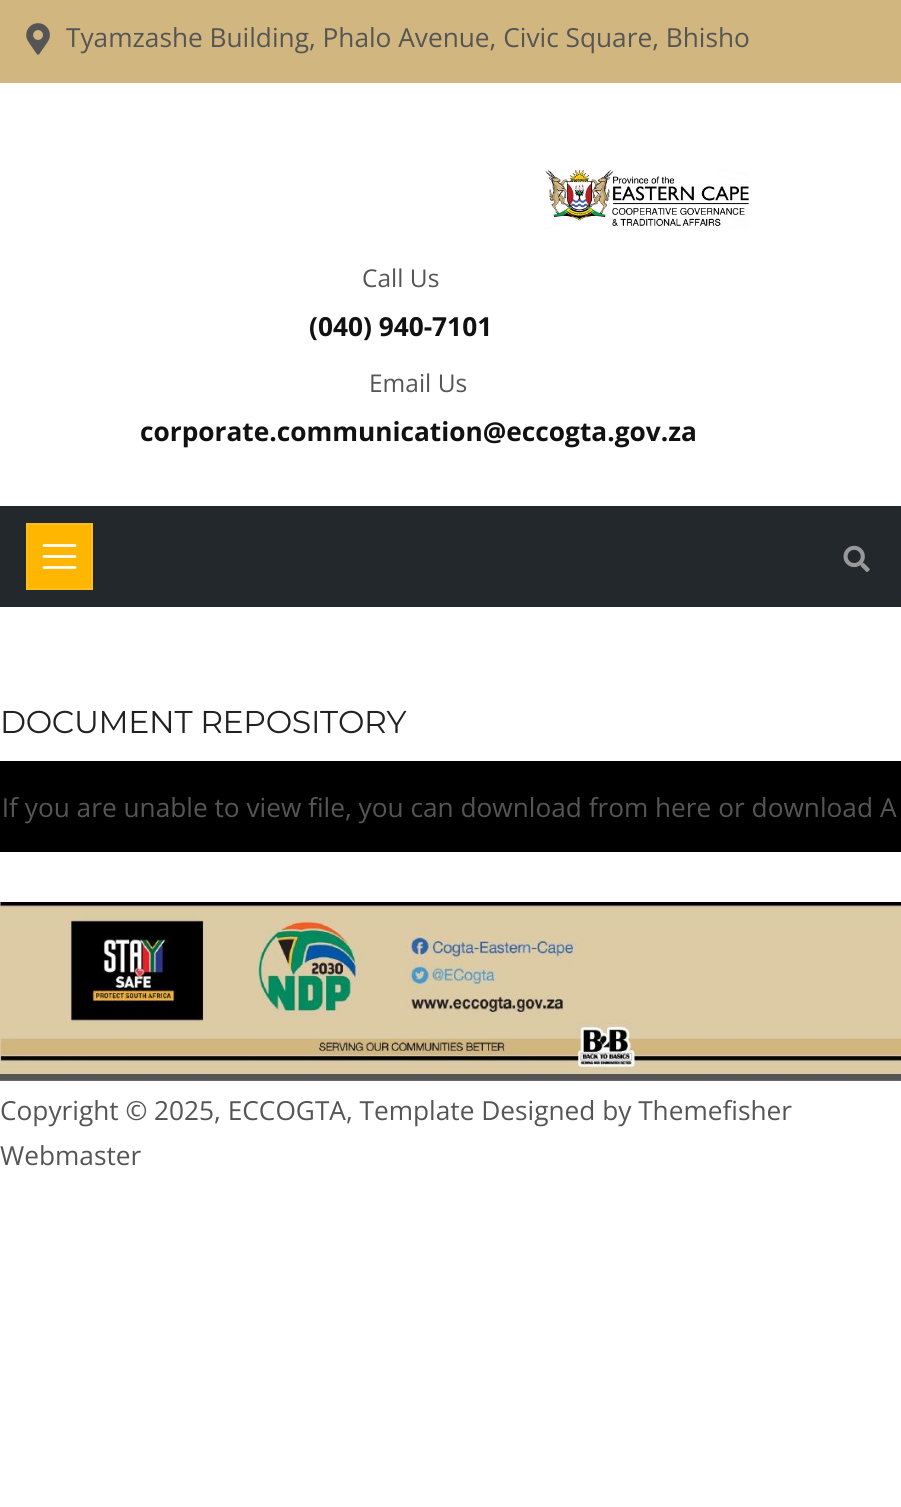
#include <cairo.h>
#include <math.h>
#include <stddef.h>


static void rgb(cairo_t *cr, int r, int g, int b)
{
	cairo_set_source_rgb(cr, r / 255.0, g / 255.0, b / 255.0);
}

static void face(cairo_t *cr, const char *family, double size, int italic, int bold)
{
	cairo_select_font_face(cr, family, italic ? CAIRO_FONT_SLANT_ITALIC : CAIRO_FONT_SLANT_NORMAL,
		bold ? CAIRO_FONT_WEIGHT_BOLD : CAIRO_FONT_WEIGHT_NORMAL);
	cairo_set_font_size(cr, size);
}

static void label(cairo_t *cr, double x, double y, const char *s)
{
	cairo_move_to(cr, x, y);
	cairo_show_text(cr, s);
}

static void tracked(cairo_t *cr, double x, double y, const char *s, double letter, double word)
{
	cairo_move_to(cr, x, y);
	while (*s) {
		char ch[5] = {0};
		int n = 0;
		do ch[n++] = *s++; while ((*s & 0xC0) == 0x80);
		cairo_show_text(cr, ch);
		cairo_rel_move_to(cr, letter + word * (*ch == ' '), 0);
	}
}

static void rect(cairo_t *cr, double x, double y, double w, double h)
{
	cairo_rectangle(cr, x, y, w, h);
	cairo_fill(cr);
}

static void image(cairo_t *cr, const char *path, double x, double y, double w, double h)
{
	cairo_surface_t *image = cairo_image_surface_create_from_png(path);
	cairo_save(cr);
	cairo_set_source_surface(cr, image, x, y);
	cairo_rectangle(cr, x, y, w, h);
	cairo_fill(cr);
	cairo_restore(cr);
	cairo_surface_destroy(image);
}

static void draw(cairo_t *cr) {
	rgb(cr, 255, 255, 255);
	cairo_paint(cr);
	rgb(cr, 209, 182, 127);
	rect(cr, 0, 0, 901, 83);
	image(cr, "image0.png", 26, 23, 24, 32);
	face(cr, "Open Sans", 26.25, 0, 0);
	rgb(cr, 85, 85, 85);
	label(cr, 66, 47, "Tyamzashe Building, Phalo Avenue, Civic Square, Bhisho");
	rgb(cr, 35, 40, 45);
	rect(cr, 0, 506, 901, 101);
	image(cr, "image1.png", 544, 169, 206, 60);
	face(cr, "Open Sans", 24.5, 0, 0);
	rgb(cr, 85, 85, 85);
	label(cr, 362, 287, "Call Us");
	face(cr, "Open Sans", 26.25, 0, 1);
	rgb(cr, 17, 17, 17);
	label(cr, 309, 336, "(040) 940-7101");
	face(cr, "Open Sans", 24.5, 0, 0);
	rgb(cr, 85, 85, 85);
	label(cr, 369, 392, "Email Us");
	face(cr, "Open Sans", 26.25, 0, 1);
	rgb(cr, 17, 17, 17);
	label(cr, 140, 441, "corporate.communication@eccogta.gov.za");
	rgb(cr, 255, 182, 0);
	cairo_rectangle(cr, 27, 524, 65, 65);
	cairo_fill_preserve(cr);
	rgb(cr, 255, 189, 26);
	cairo_stroke(cr);
	cairo_new_path(cr);
	cairo_move_to(cr, 44, 545.5);
	cairo_line_to(cr, 75, 545.5);
	cairo_move_to(cr, 44, 556.5);
	cairo_line_to(cr, 75, 556.5);
	cairo_move_to(cr, 44, 567.5);
	cairo_line_to(cr, 75, 567.5);
	rgb(cr, 255, 255, 255);
	cairo_set_line_width(cr, 2.8);
	cairo_set_line_cap(cr, CAIRO_LINE_CAP_ROUND);
	cairo_stroke(cr);
	image(cr, "image2.png", 843, 545, 27, 27);
	face(cr, "Montserrat", 31.5, 0, 0);
	rgb(cr, 33, 33, 33);
	tracked(cr, 0, 733, "DOCUMENT REPOSITORY", -0.3, 0);
	rgb(cr, 0, 0, 0);
	rect(cr, 0, 761, 901, 91);
	image(cr, "image3.png", 4, 797, 867, 27);
	face(cr, "Open Sans", 26.25, 0, 0);
	rgb(cr, 85, 85, 85);
	label(cr, 655, 817, "here");
	label(cr, 880, 817, "A");
	image(cr, "image4.png", 0, 899, 901, 182);
	label(cr, 0, 1120, "Copyright © 2025, ECCOGTA, Template Designed by Themefisher");
	label(cr, 0, 1165, "Webmaster");
}

int main(void) {
	cairo_surface_t *surface = cairo_image_surface_create(CAIRO_FORMAT_RGB24, 901, 1507);
	cairo_t *cr = cairo_create(surface);
	cairo_font_options_t *options = cairo_font_options_create();
	cairo_font_options_set_hint_metrics(options, CAIRO_HINT_METRICS_OFF);
	cairo_font_options_set_hint_style(options, CAIRO_HINT_STYLE_NONE);
	cairo_set_font_options(cr, options);
	cairo_set_miter_limit(cr, 4);
	draw(cr);
	cairo_surface_write_to_png(surface, "render.png");
	cairo_font_options_destroy(options);
	cairo_destroy(cr);
	cairo_surface_destroy(surface);
	return 0;
}
